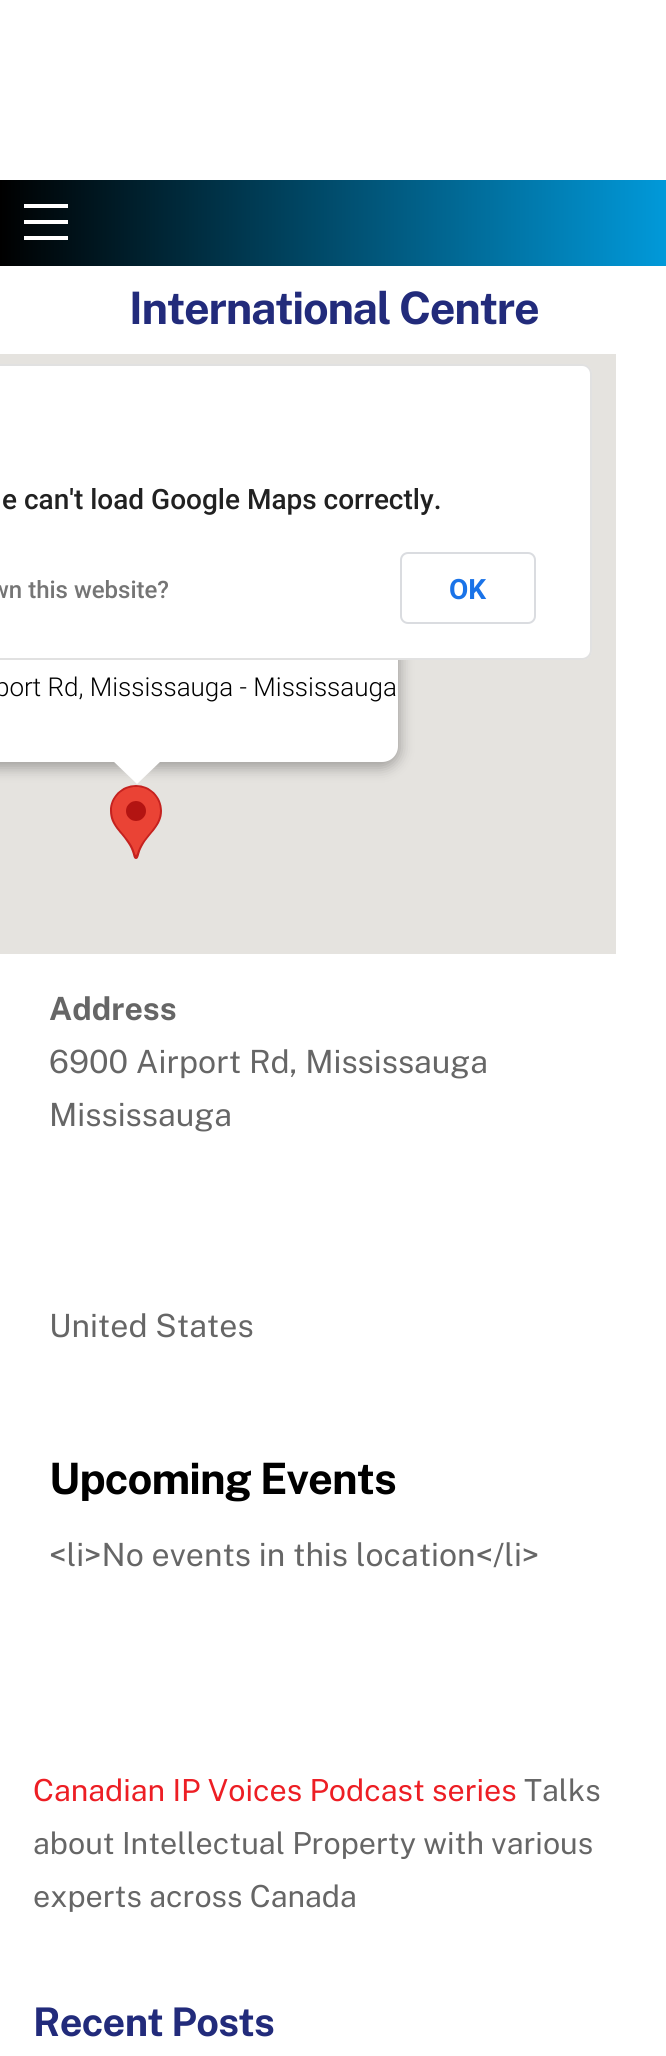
#include <cairo.h>
#include <math.h>
#include <stddef.h>


static void rgb(cairo_t *cr, int r, int g, int b)
{
	cairo_set_source_rgb(cr, r / 255.0, g / 255.0, b / 255.0);
}

static void face(cairo_t *cr, const char *family, double size, int italic, int bold)
{
	cairo_select_font_face(cr, family, italic ? CAIRO_FONT_SLANT_ITALIC : CAIRO_FONT_SLANT_NORMAL,
		bold ? CAIRO_FONT_WEIGHT_BOLD : CAIRO_FONT_WEIGHT_NORMAL);
	cairo_set_font_size(cr, size);
}

static void label(cairo_t *cr, double x, double y, const char *s)
{
	cairo_move_to(cr, x, y);
	cairo_show_text(cr, s);
}

static void tracked(cairo_t *cr, double x, double y, const char *s, double letter, double word)
{
	cairo_move_to(cr, x, y);
	while (*s) {
		char ch[5] = {0};
		int n = 0;
		do ch[n++] = *s++; while ((*s & 0xC0) == 0x80);
		cairo_show_text(cr, ch);
		cairo_rel_move_to(cr, letter + word * (*ch == ' '), 0);
	}
}

static void rect(cairo_t *cr, double x, double y, double w, double h)
{
	cairo_rectangle(cr, x, y, w, h);
	cairo_fill(cr);
}

static void rrect(cairo_t *cr, double x, double y, double w, double h, double r)
{
	cairo_new_sub_path(cr);
	cairo_arc(cr, x + w - r, y + h - r, r, 0, M_PI / 2);
	cairo_arc(cr, x + r, y + h - r, r, M_PI / 2, M_PI);
	cairo_arc(cr, x + r, y + r, r, M_PI, 1.5 * M_PI);
	cairo_arc(cr, x + w - r, y + r, r, 1.5 * M_PI, 2 * M_PI);
	cairo_close_path(cr);
}

static void soft_shadow(cairo_t *cr, double x, double y, double w, double h, double r, double blur, double alpha)
{
	cairo_push_group_with_content(cr, CAIRO_CONTENT_ALPHA);
	cairo_set_operator(cr, CAIRO_OPERATOR_SOURCE);
	for (int i = 15; i >= -15 && fmin(w, h) + blur * i / 3 > 0; i -= 2) {
		double e = blur * i / 6;
		cairo_set_source_rgba(cr, 0, 0, 0, alpha * erfc((i - 1) / 8.5) / 2);
		rrect(cr, x - e, y - e, w + 2 * e, h + 2 * e, fmax(0, fmin(r + e + blur * .6, fmin(w, h) / 2 + e)));
		cairo_fill(cr);
	}
	cairo_pattern_t *soft = cairo_pop_group(cr);
	cairo_mask(cr, soft);
	cairo_pattern_destroy(soft);
}

static void image(cairo_t *cr, const char *path, double x, double y, double w, double h)
{
	cairo_surface_t *image = cairo_image_surface_create_from_png(path);
	cairo_save(cr);
	cairo_set_source_surface(cr, image, x, y);
	cairo_rectangle(cr, x, y, w, h);
	cairo_fill(cr);
	cairo_restore(cr);
	cairo_surface_destroy(image);
}

static void draw(cairo_t *cr) {
	cairo_pattern_t *gradient;
	rgb(cr, 255, 255, 255);
	cairo_paint(cr);
	gradient = cairo_pattern_create_linear(0, 223, 666, 223);
	cairo_pattern_add_color_stop_rgba(gradient, 0, 0, 0, 0, 1);
	cairo_pattern_add_color_stop_rgba(gradient, 1, 0.004, 0.6, 0.851, 1);
	cairo_set_source(cr, gradient);
	cairo_pattern_destroy(gradient);
	rect(cr, 0, 180, 666, 86);
	rgb(cr, 255, 255, 255);
	rect(cr, 24, 236, 44, 4);
	rect(cr, 24, 204, 44, 4);
	rect(cr, 24, 220, 44, 4);
	face(cr, "Public Sans", 44.75, 0, 1);
	rgb(cr, 34, 43, 123);
	tracked(cr, 129, 324, "International Centre", -1.3, 0);
	rgb(cr, 229, 227, 223);
	rect(cr, 0, 354, 616, 600);
	image(cr, "image0.png", 110, 785, 52, 74);
	rgb(cr, 0, 0, 0);
	soft_shadow(cr, -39, 540, 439, 228, 18, 7, 0.3);
	rgb(cr, 255, 255, 255);
	cairo_new_path(cr);
	cairo_move_to(cr, 0, 538);
	cairo_line_to(cr, 382, 538);
	cairo_curve_to(cr, 391, 538, 398, 545, 398, 554);
	cairo_line_to(cr, 398, 746);
	cairo_curve_to(cr, 398, 755, 391, 762, 382, 762);
	cairo_line_to(cr, 0, 762);
	cairo_close_path(cr);
	cairo_fill(cr);
	cairo_new_path(cr);
	cairo_move_to(cr, 0, 364);
	cairo_line_to(cr, 582, 364);
	cairo_curve_to(cr, 587.5, 364, 592, 368.5, 592, 374);
	cairo_line_to(cr, 592, 650);
	cairo_curve_to(cr, 592, 655.5, 587.5, 660, 582, 660);
	cairo_line_to(cr, 0, 660);
	cairo_close_path(cr);
	cairo_fill(cr);
	rrect(cr, -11, 365, 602, 294, 9);
	cairo_set_source_rgba(cr, 0, 0, 0, 0.12);
	cairo_stroke(cr);
	face(cr, "Roboto Medium", 28, 0, 0);
	rgb(cr, 33, 33, 33);
	label(cr, 2, 509, "e can't load Google Maps correctly.");
	face(cr, "Roboto Medium", 24, 0, 0);
	rgb(cr, 117, 117, 117);
	label(cr, -9, 598, "wn this website?");
	rrect(cr, 401, 553, 134, 70, 7);
	rgb(cr, 218, 220, 224);
	cairo_stroke(cr);
	face(cr, "Roboto", 28, 0, 1);
	rgb(cr, 26, 115, 232);
	label(cr, 449, 599, "OK");
	face(cr, "Roboto Light", 26, 0, 0);
	rgb(cr, 0, 0, 0);
	label(cr, -5, 696, "port Rd, Mississauga - Mississauga");
	rgb(cr, 255, 255, 255);
	cairo_new_path(cr);
	cairo_move_to(cr, 112, 760);
	cairo_line_to(cr, 162, 760);
	cairo_line_to(cr, 137, 784);
	cairo_close_path(cr);
	cairo_fill(cr);
	face(cr, "Public Sans", 32, 0, 1);
	rgb(cr, 102, 102, 102);
	label(cr, 49, 1020, "Address");
	face(cr, "Public Sans", 32, 0, 0);
	label(cr, 49, 1073, "6900 Airport Rd, Mississauga");
	label(cr, 49, 1126, "Mississauga");
	label(cr, 49, 1337, "United States");
	face(cr, "Public Sans", 43.25, 0, 1);
	rgb(cr, 0, 0, 0);
	tracked(cr, 49, 1494, "Upcoming Events", -0.9, 0);
	face(cr, "Public Sans", 32, 0, 0);
	rgb(cr, 102, 102, 102);
	label(cr, 49, 1566, "<li>No events in this location</li>");
	face(cr, "Public Sans", 30.4, 0, 0);
	rgb(cr, 237, 30, 36);
	label(cr, 33, 1801, "Canadian IP Voices Podcast series");
	rgb(cr, 102, 102, 102);
	label(cr, 524, 1801, "Talks");
	label(cr, 33, 1854, "about Intellectual Property with various");
	label(cr, 33, 1907, "experts across Canada");
	face(cr, "Public Sans", 39.5, 0, 1);
	rgb(cr, 34, 43, 123);
	tracked(cr, 33, 2036, "Recent Posts", -0.75, 0);
}

int main(void) {
	cairo_surface_t *surface = cairo_image_surface_create(CAIRO_FORMAT_RGB24, 666, 2056);
	cairo_t *cr = cairo_create(surface);
	cairo_font_options_t *options = cairo_font_options_create();
	cairo_font_options_set_hint_metrics(options, CAIRO_HINT_METRICS_OFF);
	cairo_font_options_set_hint_style(options, CAIRO_HINT_STYLE_NONE);
	cairo_set_font_options(cr, options);
	cairo_set_miter_limit(cr, 4);
	draw(cr);
	cairo_surface_write_to_png(surface, "render.png");
	cairo_font_options_destroy(options);
	cairo_destroy(cr);
	cairo_surface_destroy(surface);
	return 0;
}
